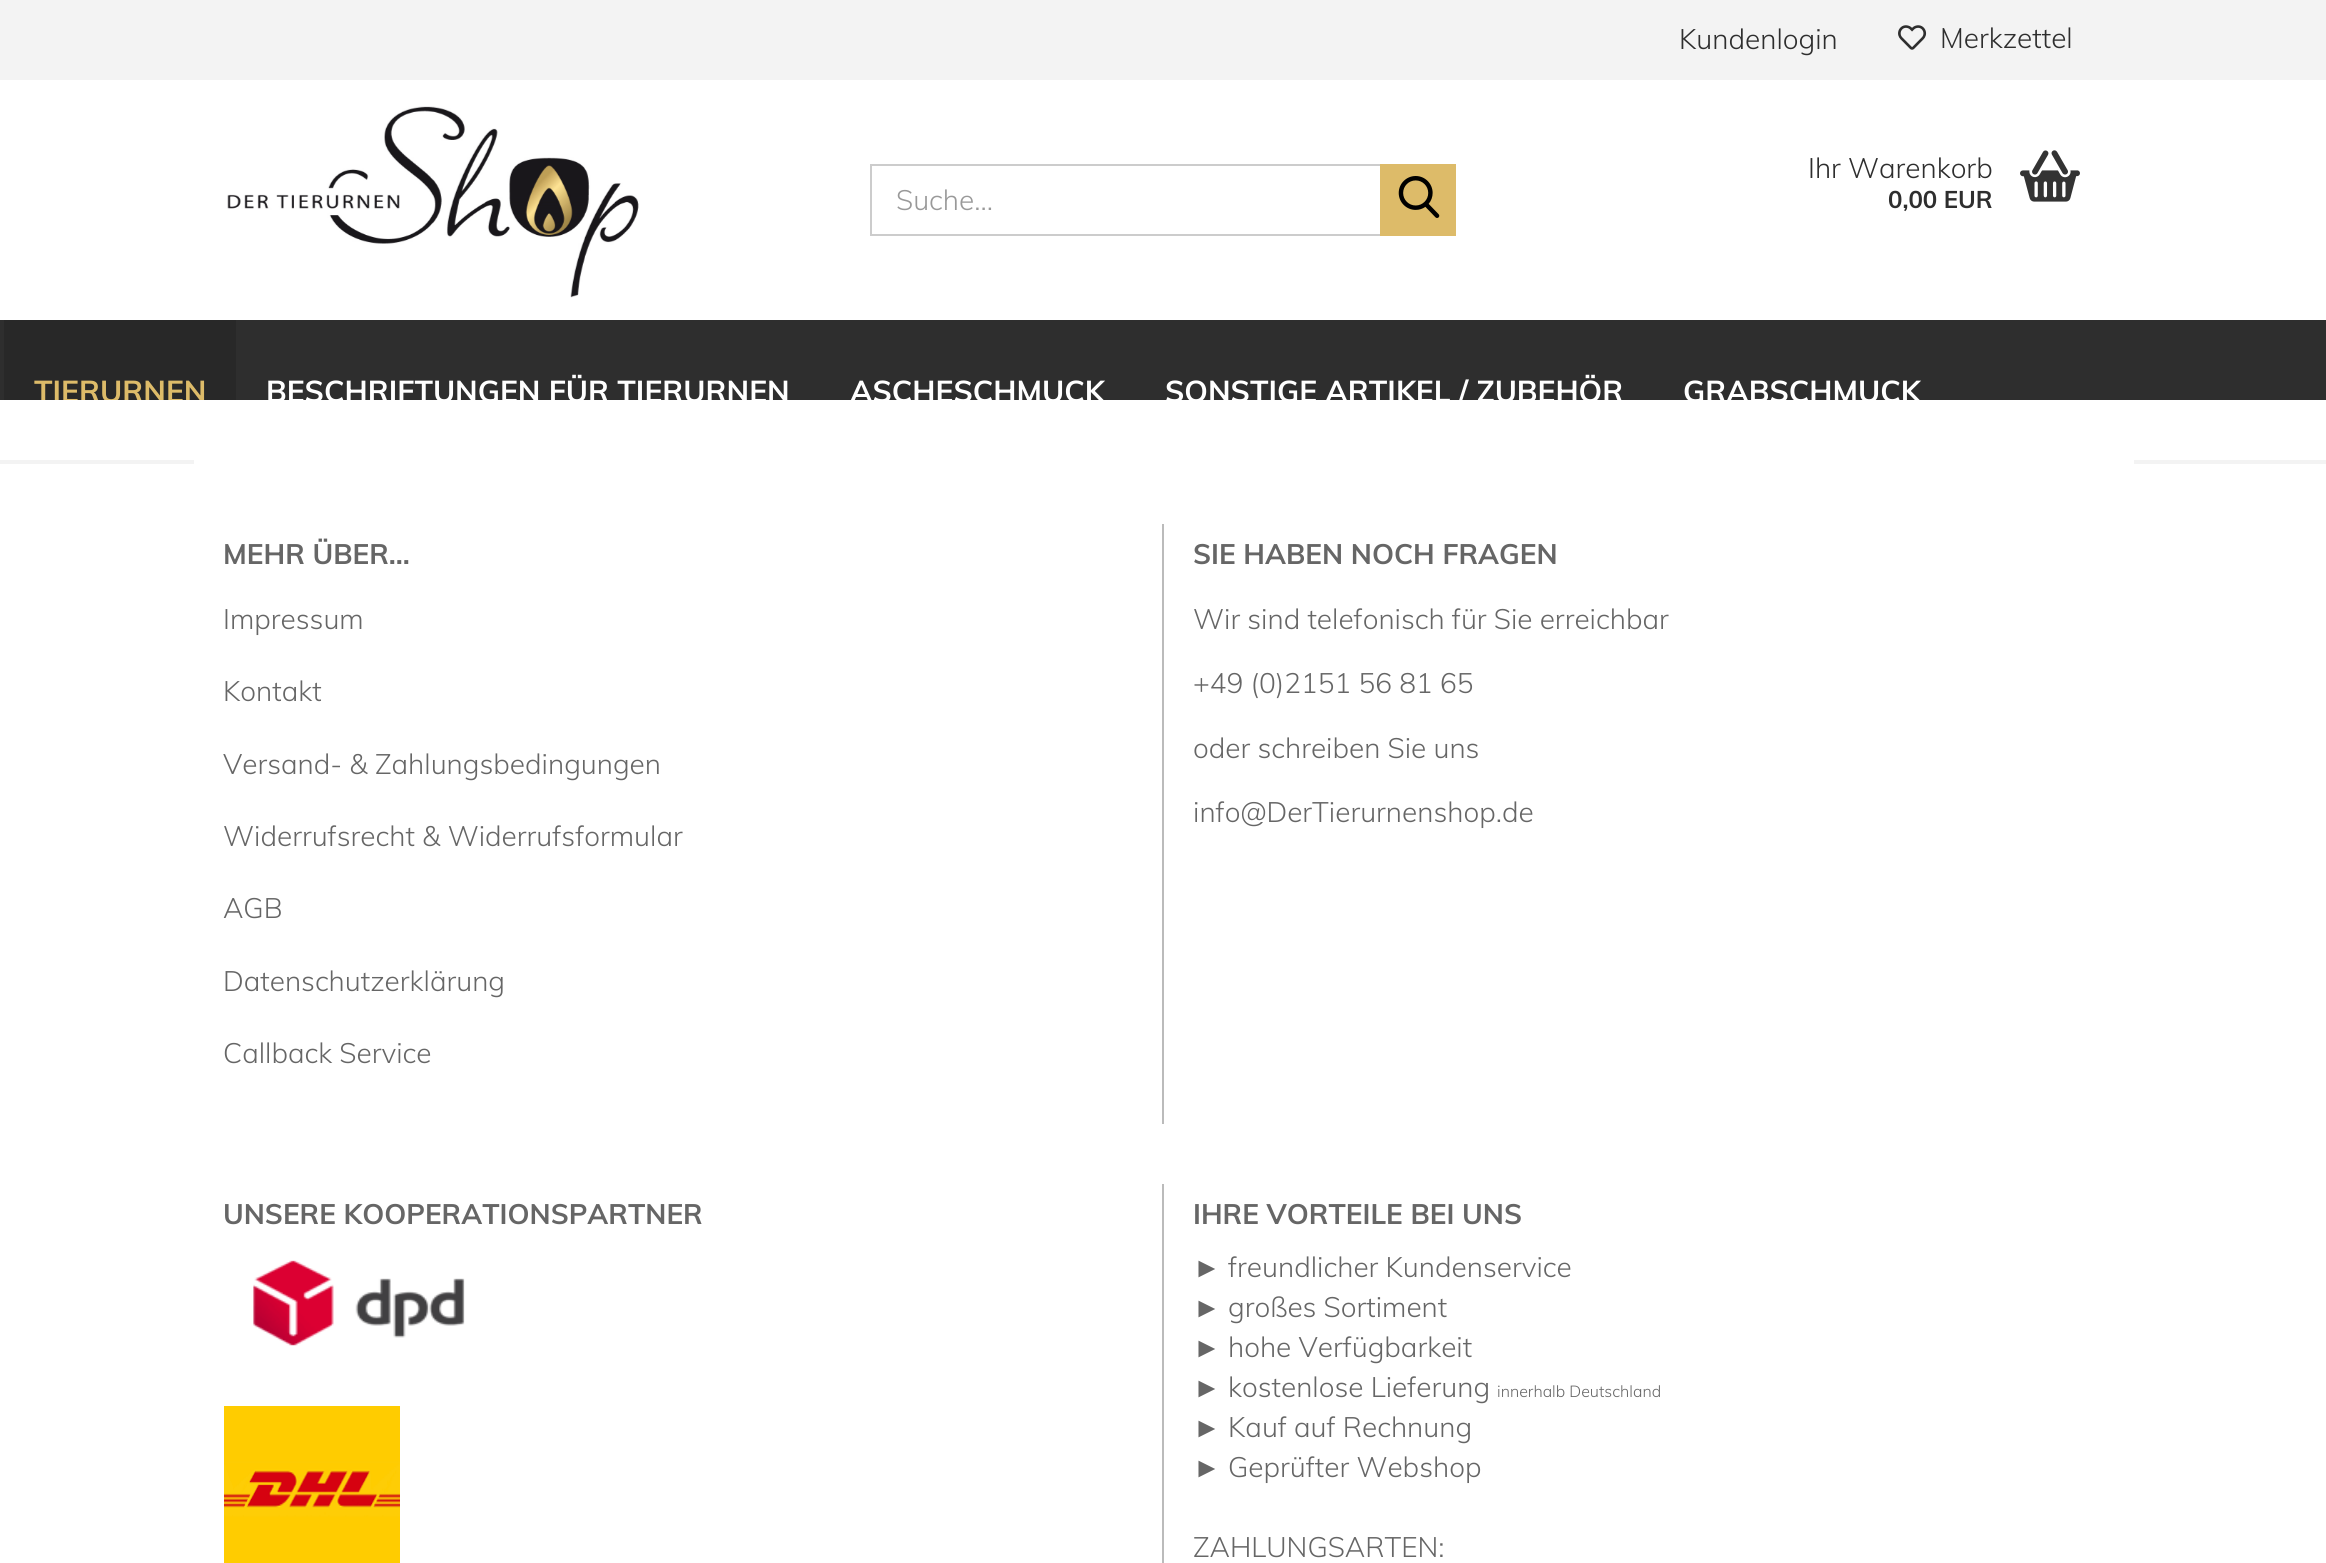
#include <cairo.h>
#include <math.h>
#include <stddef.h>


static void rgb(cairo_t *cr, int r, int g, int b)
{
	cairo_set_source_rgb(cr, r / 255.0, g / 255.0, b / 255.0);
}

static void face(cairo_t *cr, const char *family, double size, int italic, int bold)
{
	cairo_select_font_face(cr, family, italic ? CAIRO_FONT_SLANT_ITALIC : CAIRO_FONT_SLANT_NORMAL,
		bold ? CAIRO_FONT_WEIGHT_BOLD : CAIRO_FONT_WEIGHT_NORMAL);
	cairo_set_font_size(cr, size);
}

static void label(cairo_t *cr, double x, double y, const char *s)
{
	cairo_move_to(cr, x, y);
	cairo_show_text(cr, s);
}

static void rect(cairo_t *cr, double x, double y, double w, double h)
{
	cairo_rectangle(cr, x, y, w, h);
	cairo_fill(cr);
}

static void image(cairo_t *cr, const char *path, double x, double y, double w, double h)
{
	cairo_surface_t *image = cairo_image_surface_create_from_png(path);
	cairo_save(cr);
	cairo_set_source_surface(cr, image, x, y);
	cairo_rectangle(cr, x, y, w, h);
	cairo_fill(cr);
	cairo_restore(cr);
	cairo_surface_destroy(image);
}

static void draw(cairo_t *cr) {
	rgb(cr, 243, 243, 243);
	cairo_paint(cr);
	rgb(cr, 255, 255, 255);
	rect(cr, 0, 80, 2326, 380);
	face(cr, "Muli Light", 28, 0, 0);
	rgb(cr, 46, 46, 46);
	label(cr, 1679, 49, "Kundenlogin");
	image(cr, "image0.png", 1898, 25, 29, 25);
	label(cr, 1940, 48, "Merkzettel");
	image(cr, "image1.png", 227, 106, 412, 192);
	cairo_rectangle(cr, 871, 165, 584, 70);
	rgb(cr, 204, 204, 204);
	cairo_stroke(cr);
	rgb(cr, 153, 153, 153);
	label(cr, 896, 210, "Suche...");
	rgb(cr, 221, 187, 105);
	rect(cr, 1380, 164, 76, 72);
	image(cr, "image2.png", 1398, 176, 42, 42);
	rgb(cr, 46, 46, 46);
	label(cr, 1808, 178, "Ihr Warenkorb");
	face(cr, "Muli", 24, 0, 1);
	label(cr, 1888, 208, "0,00 EUR");
	image(cr, "image3.png", 2020, 150, 60, 52);
	rect(cr, 0, 320, 2326, 80);
	rgb(cr, 40, 40, 40);
	rect(cr, 4, 320, 232, 80);
	cairo_save(cr);
	cairo_rectangle(cr, 0, 320, 2326, 80);
	cairo_clip(cr);
	face(cr, "Muli", 30, 0, 1);
	rgb(cr, 221, 187, 105);
	label(cr, 34, 402, "TIERURNEN");
	rgb(cr, 255, 255, 255);
	label(cr, 266, 402, "BESCHRIFTUNGEN FÜR TIERURNEN");
	label(cr, 850, 402, "ASCHESCHMUCK");
	label(cr, 1165, 402, "SONSTIGE ARTIKEL / ZUBEHÖR");
	label(cr, 1683, 402, "GRABSCHMUCK");
	cairo_restore(cr);
	rgb(cr, 255, 255, 255);
	rect(cr, 194, 460, 1940, 4);
	rect(cr, 0, 464, 2326, 1099);
	rgb(cr, 187, 187, 187);
	rect(cr, 1162, 524, 2, 600);
	face(cr, "Muli", 28, 0, 1);
	rgb(cr, 102, 102, 102);
	label(cr, 223, 564, "MEHR ÜBER...");
	face(cr, "Muli Light", 28, 0, 0);
	label(cr, 223, 629, "Impressum");
	label(cr, 223, 701, "Kontakt");
	label(cr, 223, 774, "Versand- & Zahlungsbedingungen");
	label(cr, 223, 846, "Widerrufsrecht & Widerrufsformular");
	label(cr, 223, 918, "AGB");
	label(cr, 223, 991, "Datenschutzerklärung");
	label(cr, 223, 1063, "Callback Service");
	face(cr, "Muli", 28, 0, 1);
	label(cr, 1193, 564, "SIE HABEN NOCH FRAGEN");
	face(cr, "Muli Light", 28, 0, 0);
	label(cr, 1193, 629, "Wir sind telefonisch für Sie erreichbar");
	label(cr, 1193, 693, "+49 (0)2151 56 81 65");
	label(cr, 1193, 758, "oder schreiben Sie uns");
	label(cr, 1193, 822, "info@DerTierurnenshop.de");
	rgb(cr, 187, 187, 187);
	rect(cr, 1162, 1184, 2, 379);
	face(cr, "Muli", 28, 0, 1);
	rgb(cr, 102, 102, 102);
	label(cr, 223, 1224, "UNSERE KOOPERATIONSPARTNER");
	image(cr, "image4.png", 253, 1260, 212, 86);
	image(cr, "image5.png", 224, 1406, 176, 157);
	label(cr, 1193, 1224, "IHRE VORTEILE BEI UNS");
	face(cr, "Liberation Sans", 28, 0, 0);
	label(cr, 1193, 1277, "►");
	face(cr, "Muli Light", 28, 0, 0);
	label(cr, 1228, 1277, "freundlicher Kundenservice");
	face(cr, "Liberation Sans", 28, 0, 0);
	label(cr, 1193, 1317, "►");
	face(cr, "Muli Light", 28, 0, 0);
	label(cr, 1228, 1317, "großes Sortiment");
	face(cr, "Liberation Sans", 28, 0, 0);
	label(cr, 1193, 1357, "►");
	face(cr, "Muli Light", 28, 0, 0);
	label(cr, 1228, 1357, "hohe Verfügbarkeit");
	face(cr, "Liberation Sans", 28, 0, 0);
	label(cr, 1193, 1397, "►");
	face(cr, "Muli Light", 28, 0, 0);
	label(cr, 1228, 1397, "kostenlose Lieferung");
	face(cr, "Muli Light", 16, 0, 0);
	label(cr, 1497, 1397, "innerhalb Deutschland");
	face(cr, "Liberation Sans", 28, 0, 0);
	label(cr, 1193, 1437, "►");
	face(cr, "Muli Light", 28, 0, 0);
	label(cr, 1228, 1437, "Kauf auf Rechnung");
	face(cr, "Liberation Sans", 28, 0, 0);
	label(cr, 1193, 1477, "►");
	face(cr, "Muli Light", 28, 0, 0);
	label(cr, 1228, 1477, "Geprüfter Webshop");
	label(cr, 1193, 1557, "ZAHLUNGSARTEN:");
}

int main(void) {
	cairo_surface_t *surface = cairo_image_surface_create(CAIRO_FORMAT_RGB24, 2326, 1563);
	cairo_t *cr = cairo_create(surface);
	cairo_font_options_t *options = cairo_font_options_create();
	cairo_font_options_set_hint_metrics(options, CAIRO_HINT_METRICS_OFF);
	cairo_font_options_set_hint_style(options, CAIRO_HINT_STYLE_NONE);
	cairo_set_font_options(cr, options);
	cairo_set_miter_limit(cr, 4);
	draw(cr);
	cairo_surface_write_to_png(surface, "render.png");
	cairo_font_options_destroy(options);
	cairo_destroy(cr);
	cairo_surface_destroy(surface);
	return 0;
}
